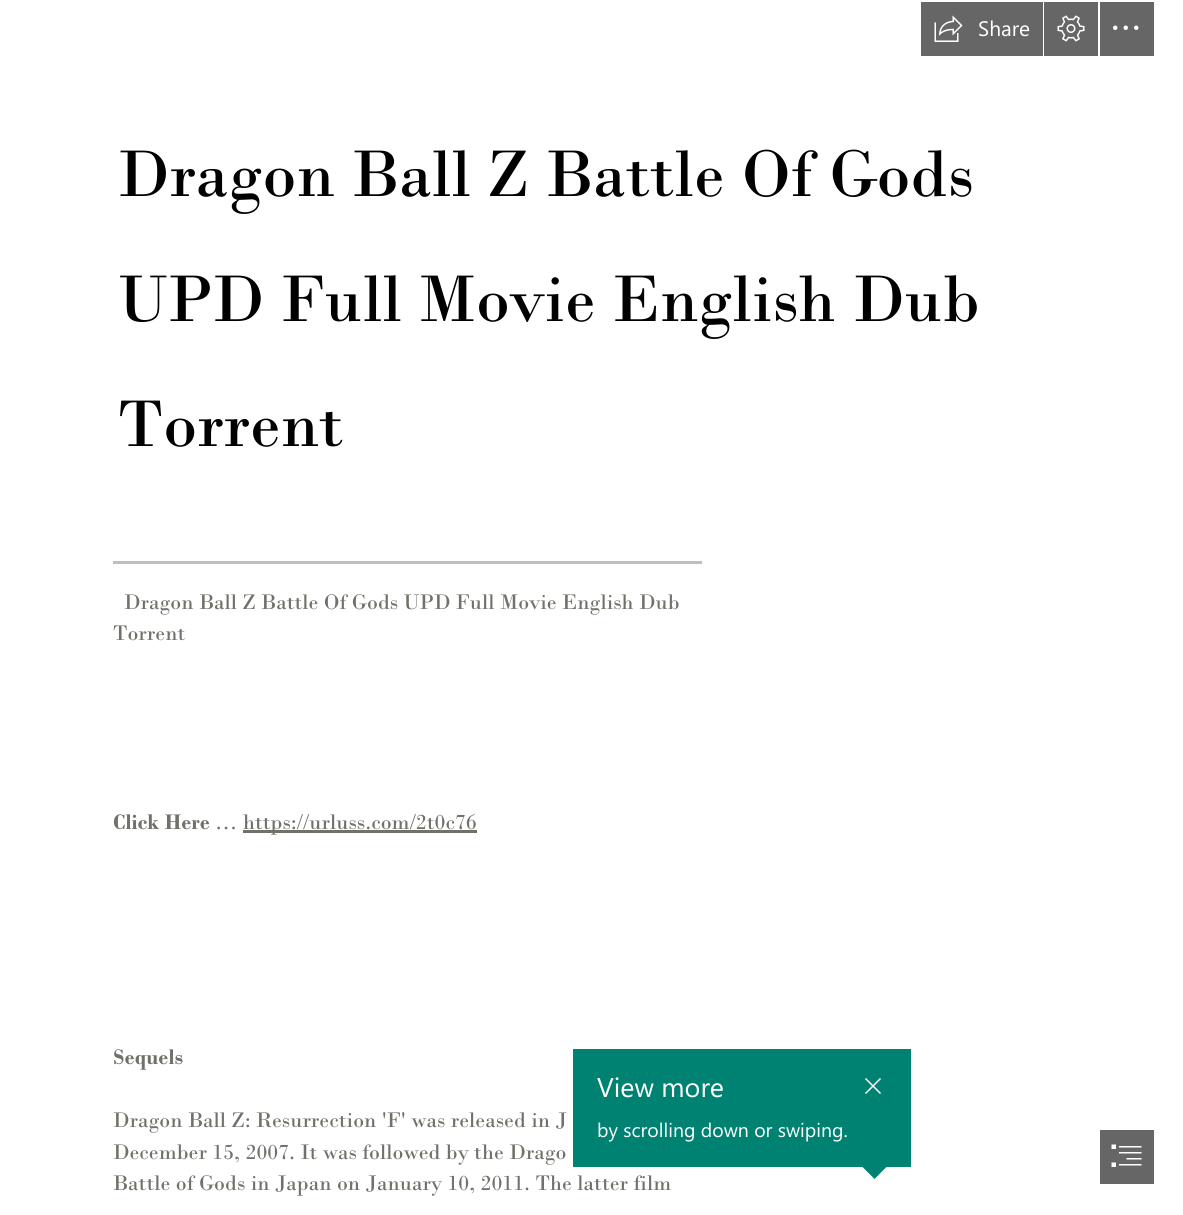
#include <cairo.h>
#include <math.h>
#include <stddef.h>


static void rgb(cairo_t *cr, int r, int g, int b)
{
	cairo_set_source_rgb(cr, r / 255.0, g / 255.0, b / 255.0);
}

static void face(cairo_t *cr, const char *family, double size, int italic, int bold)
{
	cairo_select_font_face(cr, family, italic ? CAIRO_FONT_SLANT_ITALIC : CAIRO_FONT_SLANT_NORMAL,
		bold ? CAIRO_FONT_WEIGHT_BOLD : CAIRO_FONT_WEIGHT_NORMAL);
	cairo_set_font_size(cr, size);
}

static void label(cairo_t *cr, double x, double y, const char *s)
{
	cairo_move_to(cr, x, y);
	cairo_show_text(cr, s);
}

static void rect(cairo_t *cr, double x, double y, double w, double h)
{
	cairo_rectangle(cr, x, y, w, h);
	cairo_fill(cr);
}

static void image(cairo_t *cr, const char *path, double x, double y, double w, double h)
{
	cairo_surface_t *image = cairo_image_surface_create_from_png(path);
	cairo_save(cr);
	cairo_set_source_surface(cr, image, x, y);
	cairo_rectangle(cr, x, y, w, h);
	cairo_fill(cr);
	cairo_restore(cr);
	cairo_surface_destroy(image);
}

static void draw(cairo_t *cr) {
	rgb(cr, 255, 255, 255);
	cairo_paint(cr);
	rgb(cr, 102, 102, 102);
	rect(cr, 921, 2, 122, 54);
	image(cr, "image0.png", 934, 15, 29, 27);
	face(cr, "Segoe UI", 21, 0, 0);
	rgb(cr, 255, 255, 255);
	label(cr, 978, 36, "Share");
	rgb(cr, 102, 102, 102);
	rect(cr, 1044, 2, 54, 54);
	image(cr, "image1.png", 1057, 15, 28, 27);
	rect(cr, 1100, 2, 54, 54);
	image(cr, "image2.png", 1113, 25, 26, 5);
	face(cr, "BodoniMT", 69.3, 0, 0);
	rgb(cr, 0, 0, 0);
	label(cr, 118, 196, "Dragon Ball Z Battle Of Gods");
	label(cr, 118, 321, "UPD Full Movie English Dub");
	label(cr, 118, 446, "Torrent");
	rgb(cr, 191, 191, 191);
	rect(cr, 113, 561, 589, 3);
	face(cr, "BodoniMT", 22.2, 0, 0);
	rgb(cr, 112, 113, 105);
	label(cr, 124, 609, "Dragon Ball Z Battle Of Gods UPD Full Movie English Dub");
	label(cr, 113, 640, "Torrent");
	face(cr, "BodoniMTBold", 22.2, 0, 1);
	label(cr, 113, 829, "Click Here");
	face(cr, "BodoniMT", 22.2, 0, 0);
	label(cr, 215, 829, "…");
	rect(cr, 243, 830, 234, 3);
	label(cr, 243, 829, "https://urluss.com/2t0c76");
	face(cr, "BodoniMTBold", 22.2, 0, 1);
	label(cr, 113, 1064, "Sequels");
	face(cr, "BodoniMT", 22.2, 0, 0);
	label(cr, 113, 1127, "Dragon Ball Z: Resurrection 'F' was released in J");
	label(cr, 113, 1159, "December 15, 2007. It was followed by the Drago");
	label(cr, 113, 1190, "Battle of Gods in Japan on January 10, 2011. The latter film");
	rgb(cr, 0, 130, 114);
	rect(cr, 573, 1049, 338, 118);
	face(cr, "Segoe UI", 27, 0, 0);
	rgb(cr, 255, 255, 255);
	label(cr, 597, 1097, "View more");
	face(cr, "Segoe UI", 19.5, 0, 0);
	label(cr, 597, 1137, "by scrolling down or swiping.");
	image(cr, "image3.png", 865, 1078, 16, 16);
	rgb(cr, 0, 130, 114);
	cairo_new_path(cr);
	cairo_move_to(cr, 862.5, 1167);
	cairo_line_to(cr, 886.5, 1167);
	cairo_line_to(cr, 874.5, 1179);
	cairo_close_path(cr);
	cairo_fill(cr);
	rgb(cr, 102, 102, 102);
	rect(cr, 1100, 1130, 54, 54);
	image(cr, "image4.png", 1111, 1144, 31, 23);
}

int main(void) {
	cairo_surface_t *surface = cairo_image_surface_create(CAIRO_FORMAT_RGB24, 1183, 1215);
	cairo_t *cr = cairo_create(surface);
	cairo_font_options_t *options = cairo_font_options_create();
	cairo_font_options_set_hint_metrics(options, CAIRO_HINT_METRICS_OFF);
	cairo_font_options_set_hint_style(options, CAIRO_HINT_STYLE_NONE);
	cairo_set_font_options(cr, options);
	cairo_set_miter_limit(cr, 4);
	draw(cr);
	cairo_surface_write_to_png(surface, "render.png");
	cairo_font_options_destroy(options);
	cairo_destroy(cr);
	cairo_surface_destroy(surface);
	return 0;
}
